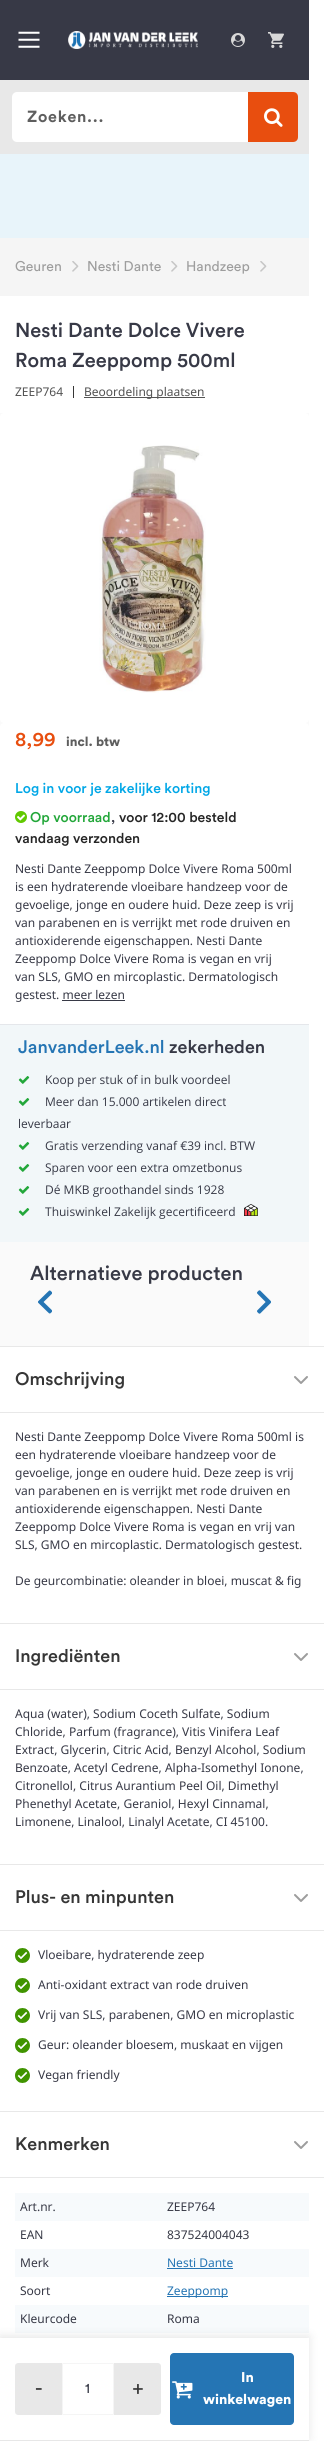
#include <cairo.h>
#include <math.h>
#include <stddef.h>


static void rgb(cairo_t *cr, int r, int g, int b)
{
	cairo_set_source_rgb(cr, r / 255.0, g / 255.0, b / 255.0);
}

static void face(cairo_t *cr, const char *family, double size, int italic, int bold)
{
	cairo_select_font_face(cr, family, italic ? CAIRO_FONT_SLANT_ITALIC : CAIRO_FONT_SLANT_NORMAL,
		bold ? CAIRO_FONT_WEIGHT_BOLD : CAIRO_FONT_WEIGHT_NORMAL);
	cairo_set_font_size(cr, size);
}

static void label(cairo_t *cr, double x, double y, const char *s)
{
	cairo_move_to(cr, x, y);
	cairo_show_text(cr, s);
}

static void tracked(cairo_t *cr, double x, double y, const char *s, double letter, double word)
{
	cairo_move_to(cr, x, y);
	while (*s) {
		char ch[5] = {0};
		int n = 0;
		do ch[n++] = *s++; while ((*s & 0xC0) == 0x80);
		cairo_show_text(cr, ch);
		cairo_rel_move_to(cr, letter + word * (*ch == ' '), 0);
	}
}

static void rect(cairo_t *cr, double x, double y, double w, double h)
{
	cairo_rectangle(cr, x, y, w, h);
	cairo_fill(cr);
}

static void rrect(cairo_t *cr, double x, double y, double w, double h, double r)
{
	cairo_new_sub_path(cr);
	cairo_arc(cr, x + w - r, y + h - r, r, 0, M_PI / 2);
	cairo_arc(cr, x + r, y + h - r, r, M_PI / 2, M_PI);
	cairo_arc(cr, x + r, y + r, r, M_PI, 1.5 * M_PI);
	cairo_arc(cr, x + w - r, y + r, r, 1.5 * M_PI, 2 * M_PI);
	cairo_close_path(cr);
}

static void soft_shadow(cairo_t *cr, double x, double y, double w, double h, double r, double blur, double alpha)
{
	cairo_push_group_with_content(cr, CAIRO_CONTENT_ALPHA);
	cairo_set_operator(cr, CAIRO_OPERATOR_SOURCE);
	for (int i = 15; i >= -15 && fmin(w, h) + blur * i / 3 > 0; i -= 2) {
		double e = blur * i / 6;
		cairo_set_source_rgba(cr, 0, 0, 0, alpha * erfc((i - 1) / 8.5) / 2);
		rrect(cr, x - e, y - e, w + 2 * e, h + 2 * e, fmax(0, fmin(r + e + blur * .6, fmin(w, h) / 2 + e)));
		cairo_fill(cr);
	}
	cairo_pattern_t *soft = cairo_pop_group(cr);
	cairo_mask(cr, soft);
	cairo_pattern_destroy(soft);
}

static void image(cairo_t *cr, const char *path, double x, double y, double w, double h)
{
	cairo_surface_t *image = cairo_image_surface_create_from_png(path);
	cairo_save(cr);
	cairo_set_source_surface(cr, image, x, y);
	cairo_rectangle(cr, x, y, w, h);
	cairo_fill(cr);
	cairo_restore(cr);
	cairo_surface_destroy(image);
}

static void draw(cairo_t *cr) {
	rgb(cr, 255, 255, 255);
	cairo_paint(cr);
	rgb(cr, 250, 250, 250);
	rect(cr, 0, 413, 309, 933);
	rgb(cr, 55, 57, 70);
	rect(cr, 0, 0, 309, 80);
	image(cr, "image0.png", 18, 31, 22, 17);
	image(cr, "image1.png", 68, 31, 130, 18);
	image(cr, "image2.png", 231, 33, 14, 14);
	image(cr, "image3.png", 268, 32, 16, 16);
	rgb(cr, 232, 232, 232);
	rect(cr, 0, 80, 309, 74);
	rgb(cr, 255, 255, 255);
	rrect(cr, 12, 92, 285, 50, 5);
	cairo_fill(cr);
	face(cr, "Circular", 16, 0, 1);
	rgb(cr, 94, 94, 94);
	tracked(cr, 27, 122, "Zoeken...", 0.75, 0);
	rgb(cr, 232, 78, 15);
	cairo_new_path(cr);
	cairo_move_to(cr, 248, 92);
	cairo_line_to(cr, 293, 92);
	cairo_curve_to(cr, 296, 92, 298, 94, 298, 97);
	cairo_line_to(cr, 298, 137);
	cairo_curve_to(cr, 298, 140, 296, 142, 293, 142);
	cairo_line_to(cr, 248, 142);
	cairo_close_path(cr);
	cairo_fill(cr);
	image(cr, "image4.png", 264, 108, 19, 19);
	rgb(cr, 232, 244, 250);
	rect(cr, 0, 154, 309, 84);
	rgb(cr, 245, 245, 245);
	rect(cr, 0, 238, 309, 58);
	face(cr, "Circular", 14, 0, 0);
	rgb(cr, 157, 157, 157);
	label(cr, 15, 271, "Geuren");
	image(cr, "image5.png", 72, 261, 7, 11);
	label(cr, 87, 271, "Nesti Dante");
	image(cr, "image5.png", 171, 261, 7, 11);
	label(cr, 186, 271, "Handzeep");
	image(cr, "image5.png", 260, 261, 7, 11);
	face(cr, "Circular Medium", 20, 0, 0);
	rgb(cr, 55, 57, 70);
	label(cr, 15, 337, "Nesti Dante Dolce Vivere");
	label(cr, 15, 367, "Roma Zeeppomp 500ml");
	face(cr, "Noto Sans", 12, 0, 0);
	rgb(cr, 83, 83, 83);
	label(cr, 15, 396, "ZEEP764");
	rgb(cr, 54, 54, 54);
	rect(cr, 73, 386, 1, 12);
	rgb(cr, 83, 83, 83);
	rect(cr, 84, 397, 121, 1);
	label(cr, 84, 396, "Beoordeling plaatsen");
	rgb(cr, 255, 255, 255);
	rrect(cr, 0, 413, 309, 310, 4);
	cairo_fill(cr);
	image(cr, "image6.png", 99, 445, 107, 248);
	rrect(cr, 0, 723, 309, 519, 4);
	cairo_fill(cr);
	face(cr, "Circular Medium", 20, 0, 0);
	rgb(cr, 232, 78, 15);
	label(cr, 15, 746, "8,99");
	face(cr, "Circular Black", 13, 0, 0);
	rgb(cr, 94, 94, 94);
	label(cr, 66, 746, "incl. btw");
	face(cr, "Circular Medium", 14, 0, 0);
	rgb(cr, 1, 167, 231);
	label(cr, 15, 793, "Log in voor je zakelijke korting");
	image(cr, "image7.png", 15, 811, 12, 12);
	rgb(cr, 35, 167, 58);
	label(cr, 30, 822, "Op voorraad");
	rgb(cr, 55, 57, 70);
	label(cr, 111, 822, ",");
	rgb(cr, 38, 38, 38);
	label(cr, 119, 822, "voor 12:00 besteld");
	label(cr, 15, 843, "vandaag verzonden");
	rgb(cr, 247, 250, 252);
	rect(cr, 15, 2305, 294, 28);
	rgb(cr, 0, 0, 0);
	soft_shadow(cr, 0, 2336, 309, 103, 0, 5, 0.1);
	rgb(cr, 255, 255, 255);
	rect(cr, 0, 2338, 309, 102);
	rgb(cr, 231, 231, 231);
	rect(cr, 0, 2440, 309, 1);
	rgb(cr, 232, 232, 232);
	cairo_new_path(cr);
	cairo_move_to(cr, 18, 2363);
	cairo_line_to(cr, 62, 2363);
	cairo_line_to(cr, 62, 2415);
	cairo_line_to(cr, 18, 2415);
	cairo_curve_to(cr, 16.5, 2415, 15, 2413.5, 15, 2412);
	cairo_line_to(cr, 15, 2366);
	cairo_curve_to(cr, 15, 2364.5, 16.5, 2363, 18, 2363);
	cairo_close_path(cr);
	cairo_fill(cr);
	face(cr, "Circular", 21, 0, 0);
	rgb(cr, 54, 54, 54);
	label(cr, 35, 2395, "-");
	rrect(cr, 62.5, 2363.5, 51, 51, 0.5);
	rgb(cr, 245, 245, 245);
	cairo_set_line_width(cr, 1);
	cairo_stroke(cr);
	face(cr, "Circular", 14, 0, 0);
	rgb(cr, 55, 57, 70);
	tracked(cr, 85, 2393, "1", 0.75, 0);
	rgb(cr, 232, 232, 232);
	cairo_new_path(cr);
	cairo_move_to(cr, 114, 2363);
	cairo_line_to(cr, 158, 2363);
	cairo_curve_to(cr, 159.5, 2363, 161, 2364.5, 161, 2366);
	cairo_line_to(cr, 161, 2412);
	cairo_curve_to(cr, 161, 2413.5, 159.5, 2415, 158, 2415);
	cairo_line_to(cr, 114, 2415);
	cairo_close_path(cr);
	cairo_fill(cr);
	face(cr, "Circular", 21, 0, 0);
	rgb(cr, 54, 54, 54);
	label(cr, 132, 2395, "+");
	rgb(cr, 37, 117, 180);
	rrect(cr, 170, 2353, 124, 72, 4);
	cairo_fill(cr);
	image(cr, "image8.png", 172, 2381, 21, 18);
	face(cr, "Circular Black", 14, 0, 0);
	rgb(cr, 255, 255, 255);
	label(cr, 241, 2382, "In");
	label(cr, 203, 2404, "winkelwagen");
	rgb(cr, 229, 231, 235);
	rect(cr, 0, 1024, 309, 1);
	face(cr, "Noto Sans", 12, 0, 0);
	rgb(cr, 55, 57, 70);
	label(cr, 15, 873, "Nesti Dante Zeeppomp Dolce Vivere Roma 500ml");
	label(cr, 15, 891, "is een hydraterende vloeibare handzeep voor de");
	label(cr, 15, 909, "gevoelige, jonge en oudere huid. Deze zeep is vrij");
	label(cr, 15, 927, "van parabenen en is verrijkt met rode druiven en");
	label(cr, 15, 945, "antioxiderende eigenschappen. Nesti Dante");
	label(cr, 15, 963, "Zeeppomp Dolce Vivere Roma is vegan en vrij");
	label(cr, 15, 981, "van SLS, GMO en mircoplastic. Dermatologisch");
	label(cr, 15, 999, "gestest. meer lezen");
	rect(cr, 62, 1000, 63, 1);
	rgb(cr, 242, 247, 249);
	rect(cr, 0, 1025, 309, 217);
	face(cr, "Circular Medium", 18, 0, 0);
	rgb(cr, 37, 117, 180);
	label(cr, 18, 1053, "JanvanderLeek.nl");
	rgb(cr, 55, 57, 70);
	label(cr, 169, 1053, "zekerheden");
	image(cr, "image9.png", 18, 1076, 12, 8);
	face(cr, "Open Sans", 12, 0, 0);
	label(cr, 45, 1084, "Koop per stuk of in bulk voordeel");
	image(cr, "image9.png", 18, 1098, 12, 8);
	label(cr, 45, 1106, "Meer dan 15.000 artikelen direct");
	label(cr, 18, 1128, "leverbaar");
	image(cr, "image9.png", 18, 1142, 12, 8);
	label(cr, 45, 1150, "Gratis verzending vanaf €39 incl. BTW");
	image(cr, "image9.png", 18, 1164, 12, 8);
	label(cr, 45, 1172, "Sparen voor een extra omzetbonus");
	image(cr, "image9.png", 18, 1186, 12, 8);
	label(cr, 45, 1194, "Dé MKB groothandel sinds 1928");
	image(cr, "image9.png", 18, 1208, 12, 8);
	label(cr, 45, 1216, "Thuiswinkel Zakelijk gecertificeerd");
	image(cr, "image10.png", 244, 1204, 14, 12);
	face(cr, "Circular Medium", 20, 0, 0);
	label(cr, 30, 1280, "Alternatieve producten");
	image(cr, "image11.png", 38, 1290, 14, 24);
	image(cr, "image12.png", 257, 1290, 14, 24);
	rgb(cr, 232, 232, 232);
	rect(cr, 0, 1346, 324, 1);
	face(cr, "Circular Medium", 18, 0, 0);
	rgb(cr, 54, 54, 54);
	label(cr, 15, 1385, "Omschrijving");
	image(cr, "image13.png", 294, 1376, 14, 8);
	rgb(cr, 232, 232, 232);
	rect(cr, 0, 1412, 324, 1);
	face(cr, "Noto Sans", 12, 0, 0);
	rgb(cr, 55, 57, 70);
	label(cr, 15, 1441, "Nesti Dante Zeeppomp Dolce Vivere Roma 500ml is");
	label(cr, 15, 1459, "een hydraterende vloeibare handzeep voor de");
	label(cr, 15, 1477, "gevoelige, jonge en oudere huid. Deze zeep is vrij");
	label(cr, 15, 1495, "van parabenen en is verrijkt met rode druiven en");
	label(cr, 15, 1513, "antioxiderende eigenschappen. Nesti Dante");
	label(cr, 15, 1531, "Zeeppomp Dolce Vivere Roma is vegan en vrij van");
	label(cr, 15, 1549, "SLS, GMO en mircoplastic. Dermatologisch gestest.");
	label(cr, 15, 1585, "De geurcombinatie: oleander in bloei, muscat & fig");
	rgb(cr, 232, 232, 232);
	rect(cr, 0, 1623, 324, 1);
	face(cr, "Circular Medium", 18, 0, 0);
	rgb(cr, 54, 54, 54);
	label(cr, 15, 1662, "Ingrediënten");
	image(cr, "image13.png", 294, 1653, 14, 8);
	rgb(cr, 232, 232, 232);
	rect(cr, 0, 1689, 324, 1);
	face(cr, "Noto Sans", 12, 0, 0);
	rgb(cr, 55, 57, 70);
	label(cr, 15, 1718, "Aqua (water), Sodium Coceth Sulfate, Sodium");
	label(cr, 15, 1736, "Chloride, Parfum (fragrance), Vitis Vinifera Leaf");
	label(cr, 15, 1754, "Extract, Glycerin, Citric Acid, Benzyl Alcohol, Sodium");
	label(cr, 15, 1772, "Benzoate, Acetyl Cedrene, Alpha-Isomethyl Ionone,");
	label(cr, 15, 1790, "Citronellol, Citrus Aurantium Peel Oil, Dimethyl");
	label(cr, 15, 1808, "Phenethyl Acetate, Geraniol, Hexyl Cinnamal,");
	label(cr, 15, 1826, "Limonene, Linalool, Linalyl Acetate, CI 45100.");
	rgb(cr, 232, 232, 232);
	rect(cr, 0, 1864, 324, 1);
	face(cr, "Circular Medium", 18, 0, 0);
	rgb(cr, 54, 54, 54);
	label(cr, 15, 1903, "Plus- en minpunten");
	image(cr, "image13.png", 294, 1894, 14, 8);
	rgb(cr, 232, 232, 232);
	rect(cr, 0, 1930, 324, 1);
	image(cr, "image14.png", 15, 1948, 15, 15);
	face(cr, "Noto Sans", 12, 0, 0);
	rgb(cr, 55, 57, 70);
	label(cr, 38, 1959, "Vloeibare, hydraterende zeep");
	image(cr, "image14.png", 15, 1978, 15, 15);
	label(cr, 38, 1989, "Anti-oxidant extract van rode druiven");
	image(cr, "image14.png", 15, 2008, 15, 15);
	label(cr, 38, 2019, "Vrij van SLS, parabenen, GMO en microplastic");
	image(cr, "image14.png", 15, 2038, 15, 15);
	label(cr, 38, 2049, "Geur: oleander bloesem, muskaat en vijgen");
	image(cr, "image14.png", 15, 2068, 15, 15);
	label(cr, 38, 2079, "Vegan friendly");
	rgb(cr, 232, 232, 232);
	rect(cr, 0, 2111, 324, 1);
	face(cr, "Circular Medium", 18, 0, 0);
	rgb(cr, 54, 54, 54);
	label(cr, 15, 2150, "Kenmerken");
	image(cr, "image13.png", 294, 2141, 14, 8);
	rgb(cr, 232, 232, 232);
	rect(cr, 0, 2177, 324, 1);
	rgb(cr, 247, 250, 252);
	rect(cr, 15, 2193, 294, 28);
	face(cr, "Noto Sans", 12, 0, 0);
	rgb(cr, 55, 57, 70);
	label(cr, 20, 2211, "Art.nr.");
	label(cr, 167, 2211, "ZEEP764");
	label(cr, 20, 2239, "EAN");
	label(cr, 167, 2239, "837524004043");
	rgb(cr, 247, 250, 252);
	rect(cr, 15, 2249, 294, 28);
	rgb(cr, 55, 57, 70);
	label(cr, 20, 2267, "Merk");
	rgb(cr, 37, 117, 180);
	label(cr, 167, 2267, "Nesti Dante");
	rect(cr, 167, 2268, 66, 1);
	rgb(cr, 55, 57, 70);
	label(cr, 20, 2295, "Soort");
	rgb(cr, 37, 117, 180);
	rect(cr, 167, 2296, 61, 1);
	label(cr, 167, 2295, "Zeeppomp");
	rgb(cr, 55, 57, 70);
	label(cr, 20, 2323, "Kleurcode");
	label(cr, 167, 2323, "Roma");
}

int main(void) {
	cairo_surface_t *surface = cairo_image_surface_create(CAIRO_FORMAT_RGB24, 324, 2441);
	cairo_t *cr = cairo_create(surface);
	cairo_font_options_t *options = cairo_font_options_create();
	cairo_font_options_set_hint_metrics(options, CAIRO_HINT_METRICS_OFF);
	cairo_font_options_set_hint_style(options, CAIRO_HINT_STYLE_NONE);
	cairo_set_font_options(cr, options);
	cairo_set_miter_limit(cr, 4);
	draw(cr);
	cairo_surface_write_to_png(surface, "render.png");
	cairo_font_options_destroy(options);
	cairo_destroy(cr);
	cairo_surface_destroy(surface);
	return 0;
}
